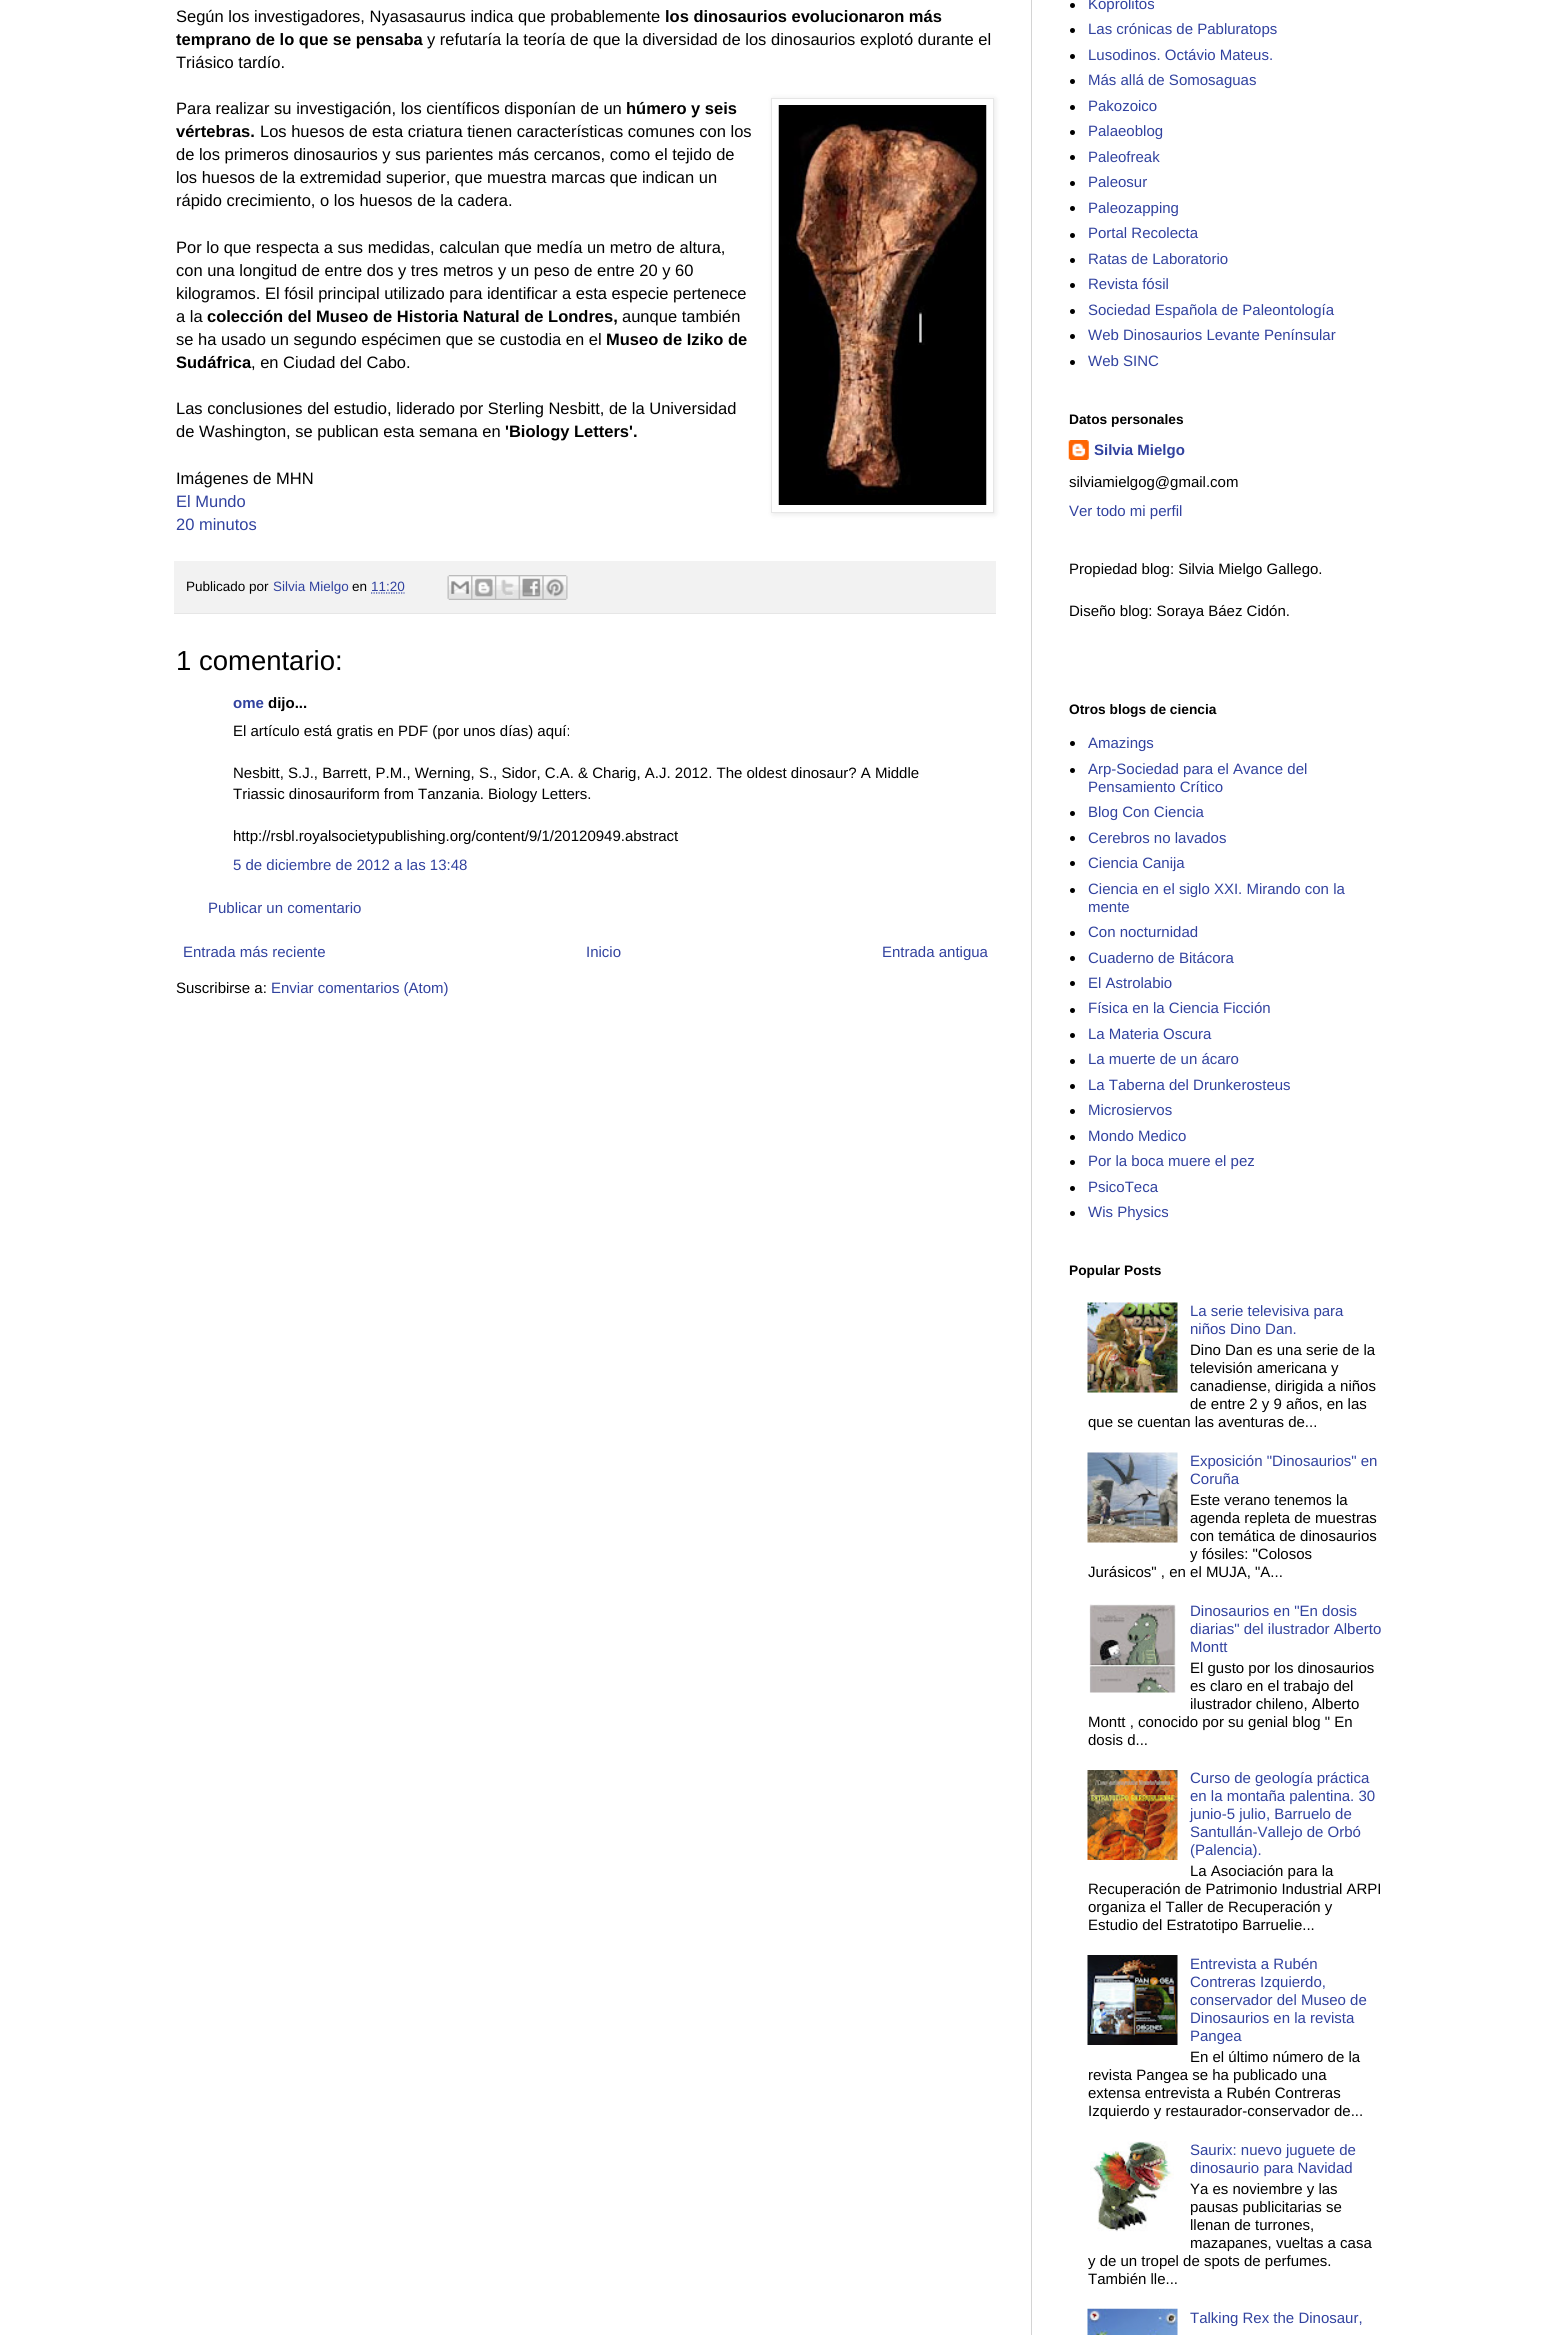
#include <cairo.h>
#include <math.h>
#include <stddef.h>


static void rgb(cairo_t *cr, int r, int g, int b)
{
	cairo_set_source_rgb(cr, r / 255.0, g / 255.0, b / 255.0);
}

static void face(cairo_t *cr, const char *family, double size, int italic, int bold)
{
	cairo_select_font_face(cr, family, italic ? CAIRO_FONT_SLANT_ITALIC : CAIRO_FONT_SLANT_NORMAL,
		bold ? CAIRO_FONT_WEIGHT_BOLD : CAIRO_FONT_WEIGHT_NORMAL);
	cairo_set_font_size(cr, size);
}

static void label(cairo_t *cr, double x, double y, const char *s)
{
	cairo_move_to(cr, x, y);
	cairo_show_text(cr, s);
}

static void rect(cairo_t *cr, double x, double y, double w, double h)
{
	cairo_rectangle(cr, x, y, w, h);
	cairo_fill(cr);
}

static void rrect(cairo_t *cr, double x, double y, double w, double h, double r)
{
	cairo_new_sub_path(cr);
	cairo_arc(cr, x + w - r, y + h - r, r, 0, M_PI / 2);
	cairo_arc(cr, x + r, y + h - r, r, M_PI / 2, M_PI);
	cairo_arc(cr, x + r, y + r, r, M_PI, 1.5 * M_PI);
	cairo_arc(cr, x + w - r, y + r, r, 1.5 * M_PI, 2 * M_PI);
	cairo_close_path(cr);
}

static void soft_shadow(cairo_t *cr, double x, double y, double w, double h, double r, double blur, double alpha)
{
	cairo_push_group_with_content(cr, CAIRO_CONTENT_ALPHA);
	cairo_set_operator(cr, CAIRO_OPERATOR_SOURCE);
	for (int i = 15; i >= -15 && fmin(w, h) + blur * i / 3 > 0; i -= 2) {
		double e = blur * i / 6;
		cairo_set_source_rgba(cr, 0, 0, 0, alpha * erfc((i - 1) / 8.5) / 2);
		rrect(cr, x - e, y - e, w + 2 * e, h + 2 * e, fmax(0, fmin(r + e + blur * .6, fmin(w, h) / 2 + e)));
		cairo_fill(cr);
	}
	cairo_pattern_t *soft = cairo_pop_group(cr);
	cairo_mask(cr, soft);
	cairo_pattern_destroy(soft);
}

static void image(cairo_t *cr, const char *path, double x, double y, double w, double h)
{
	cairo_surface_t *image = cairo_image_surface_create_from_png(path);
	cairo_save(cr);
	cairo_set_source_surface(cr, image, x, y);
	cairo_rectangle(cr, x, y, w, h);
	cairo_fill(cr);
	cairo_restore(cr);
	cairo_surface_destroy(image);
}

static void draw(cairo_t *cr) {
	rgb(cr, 255, 255, 255);
	cairo_paint(cr);
	face(cr, "Liberation Sans", 16.5, 0, 0);
	rgb(cr, 0, 0, 0);
	label(cr, 176, 22, "Según los investigadores, Nyasasaurus indica que probablemente");
	face(cr, "Liberation Sans", 16.5, 0, 1);
	label(cr, 665, 22, "los dinosaurios evolucionaron más");
	label(cr, 176, 45, "temprano de lo que se pensaba");
	face(cr, "Liberation Sans", 16.5, 0, 0);
	label(cr, 427, 45, "y refutaría la teoría de que la diversidad de los dinosaurios explotó durante el");
	label(cr, 176, 68, "Triásico tardío.");
	label(cr, 176, 114, "Para realizar su investigación, los científicos disponían de un");
	face(cr, "Liberation Sans", 16.5, 0, 1);
	label(cr, 626, 114, "húmero y seis");
	rgb(cr, 0, 0, 0);
	soft_shadow(cr, 773, 99, 222, 415, 0, 3, 0.1);
	rgb(cr, 255, 255, 255);
	cairo_rectangle(cr, 771.5, 98.5, 222, 414);
	cairo_fill_preserve(cr);
	rgb(cr, 230, 230, 230);
	cairo_set_line_width(cr, 1);
	cairo_stroke(cr);
	image(cr, "image0.png", 778, 105, 209, 400);
	rgb(cr, 0, 0, 0);
	label(cr, 176, 137, "vértebras.");
	face(cr, "Liberation Sans", 16.5, 0, 0);
	label(cr, 260, 137, "Los huesos de esta criatura tienen características comunes con los");
	label(cr, 176, 160, "de los primeros dinosaurios y sus parientes más cercanos, como el tejido de");
	label(cr, 176, 183, "los huesos de la extremidad superior, que muestra marcas que indican un");
	label(cr, 176, 206, "rápido crecimiento, o los huesos de la cadera.");
	label(cr, 176, 253, "Por lo que respecta a sus medidas, calculan que medía un metro de altura,");
	label(cr, 176, 276, "con una longitud de entre dos y tres metros y un peso de entre 20 y 60");
	label(cr, 176, 299, "kilogramos. El fósil principal utilizado para identificar a esta especie pertenece");
	label(cr, 176, 322, "a la");
	face(cr, "Liberation Sans", 16.5, 0, 1);
	label(cr, 207, 322, "colección del Museo de Historia Natural de Londres,");
	face(cr, "Liberation Sans", 16.5, 0, 0);
	label(cr, 622, 322, "aunque también");
	label(cr, 176, 345, "se ha usado un segundo espécimen que se custodia en el");
	face(cr, "Liberation Sans", 16.5, 0, 1);
	label(cr, 606, 345, "Museo de Iziko de");
	label(cr, 176, 368, "Sudáfrica");
	face(cr, "Liberation Sans", 16.5, 0, 0);
	label(cr, 251, 368, ", en Ciudad del Cabo.");
	label(cr, 176, 414, "Las conclusiones del estudio, liderado por Sterling Nesbitt, de la Universidad");
	label(cr, 176, 437, "de Washington, se publican esta semana en");
	face(cr, "Liberation Sans", 16.5, 0, 1);
	label(cr, 505, 437, "'Biology Letters'.");
	face(cr, "Liberation Sans", 16.5, 0, 0);
	label(cr, 176, 484, "Imágenes de MHN");
	rgb(cr, 49, 66, 159);
	label(cr, 176, 507, "El Mundo");
	label(cr, 176, 530, "20 minutos");
	rgb(cr, 242, 242, 242);
	rect(cr, 174, 561, 822, 52);
	rgb(cr, 230, 230, 230);
	rect(cr, 174, 613, 822, 1);
	face(cr, "Liberation Sans", 13.5, 0, 0);
	rgb(cr, 0, 0, 0);
	label(cr, 186, 591, "Publicado por");
	rgb(cr, 49, 66, 159);
	label(cr, 273, 591, "Silvia Mielgo");
	rgb(cr, 0, 0, 0);
	label(cr, 352, 591, "en");
	rgb(cr, 49, 66, 159);
	label(cr, 371, 591, "11:20");
	cairo_new_path(cr);
	cairo_move_to(cr, 371, 593);
	cairo_line_to(cr, 404.5, 593);
	cairo_set_line_width(cr, 1.2);
	cairo_set_dash(cr, (double[]){1.25, 1.25}, 2, 0);
	cairo_stroke(cr);
	image(cr, "image1.png", 447, 575, 25, 25);
	image(cr, "image2.png", 471, 575, 24, 25);
	image(cr, "image3.png", 495, 575, 24, 25);
	image(cr, "image4.png", 518, 575, 25, 25);
	image(cr, "image5.png", 542, 575, 26, 25);
	face(cr, "Liberation Sans", 27.5, 0, 0);
	rgb(cr, 0, 0, 0);
	label(cr, 176, 670, "1 comentario:");
	face(cr, "Liberation Sans", 15, 0, 1);
	rgb(cr, 49, 66, 159);
	label(cr, 233, 708, "ome");
	rgb(cr, 0, 0, 0);
	label(cr, 268, 708, "dijo...");
	face(cr, "Liberation Sans", 15, 0, 0);
	label(cr, 233, 736, "El artículo está gratis en PDF (por unos días) aquí:");
	label(cr, 233, 778, "Nesbitt, S.J., Barrett, P.M., Werning, S., Sidor, C.A. & Charig, A.J. 2012. The oldest dinosaur? A Middle");
	label(cr, 233, 799, "Triassic dinosauriform from Tanzania. Biology Letters.");
	label(cr, 233, 841, "http://rsbl.royalsocietypublishing.org/content/9/1/20120949.abstract");
	rgb(cr, 49, 66, 159);
	label(cr, 233, 870, "5 de diciembre de 2012 a las 13:48");
	label(cr, 208, 913, "Publicar un comentario");
	label(cr, 183, 957, "Entrada más reciente");
	label(cr, 586, 957, "Inicio");
	label(cr, 882, 957, "Entrada antigua");
	rgb(cr, 0, 0, 0);
	label(cr, 176, 993, "Suscribirse a:");
	rgb(cr, 49, 66, 159);
	label(cr, 271, 993, "Enviar comentarios (Atom)");
	rgb(cr, 0, 0, 0);
	cairo_new_path(cr);
	cairo_arc(cr, 1072.5, 5.5, 2.5, 0, 2 * M_PI);
	cairo_fill(cr);
	rgb(cr, 49, 66, 159);
	label(cr, 1088, 9, "Koprolitos");
	rgb(cr, 0, 0, 0);
	cairo_new_path(cr);
	cairo_arc(cr, 1072.5, 30.5, 2.5, 0, 2 * M_PI);
	cairo_fill(cr);
	rgb(cr, 49, 66, 159);
	label(cr, 1088, 34, "Las crónicas de Pabluratops");
	rgb(cr, 0, 0, 0);
	cairo_new_path(cr);
	cairo_arc(cr, 1072.5, 56.5, 2.5, 0, 2 * M_PI);
	cairo_fill(cr);
	rgb(cr, 49, 66, 159);
	label(cr, 1088, 60, "Lusodinos. Octávio Mateus.");
	rgb(cr, 0, 0, 0);
	cairo_new_path(cr);
	cairo_arc(cr, 1072.5, 81.5, 2.5, 0, 2 * M_PI);
	cairo_fill(cr);
	rgb(cr, 49, 66, 159);
	label(cr, 1088, 85, "Más allá de Somosaguas");
	rgb(cr, 0, 0, 0);
	cairo_new_path(cr);
	cairo_arc(cr, 1072.5, 107.5, 2.5, 0, 2 * M_PI);
	cairo_fill(cr);
	rgb(cr, 49, 66, 159);
	label(cr, 1088, 111, "Pakozoico");
	rgb(cr, 0, 0, 0);
	cairo_new_path(cr);
	cairo_arc(cr, 1072.5, 132.5, 2.5, 0, 2 * M_PI);
	cairo_fill(cr);
	rgb(cr, 49, 66, 159);
	label(cr, 1088, 136, "Palaeoblog");
	rgb(cr, 0, 0, 0);
	cairo_new_path(cr);
	cairo_arc(cr, 1072.5, 157.5, 2.5, 0, 2 * M_PI);
	cairo_fill(cr);
	rgb(cr, 49, 66, 159);
	label(cr, 1088, 162, "Paleofreak");
	rgb(cr, 0, 0, 0);
	cairo_new_path(cr);
	cairo_arc(cr, 1072.5, 183.5, 2.5, 0, 2 * M_PI);
	cairo_fill(cr);
	rgb(cr, 49, 66, 159);
	label(cr, 1088, 187, "Paleosur");
	rgb(cr, 0, 0, 0);
	cairo_new_path(cr);
	cairo_arc(cr, 1072.5, 208.5, 2.5, 0, 2 * M_PI);
	cairo_fill(cr);
	rgb(cr, 49, 66, 159);
	label(cr, 1088, 213, "Paleozapping");
	rgb(cr, 0, 0, 0);
	cairo_new_path(cr);
	cairo_arc(cr, 1072.5, 235.5, 2.5, 0, 2 * M_PI);
	cairo_fill(cr);
	rgb(cr, 49, 66, 159);
	label(cr, 1088, 238, "Portal Recolecta");
	rgb(cr, 0, 0, 0);
	cairo_new_path(cr);
	cairo_arc(cr, 1072.5, 260.5, 2.5, 0, 2 * M_PI);
	cairo_fill(cr);
	rgb(cr, 49, 66, 159);
	label(cr, 1088, 264, "Ratas de Laboratorio");
	rgb(cr, 0, 0, 0);
	cairo_new_path(cr);
	cairo_arc(cr, 1072.5, 285.5, 2.5, 0, 2 * M_PI);
	cairo_fill(cr);
	rgb(cr, 49, 66, 159);
	label(cr, 1088, 289, "Revista fósil");
	rgb(cr, 0, 0, 0);
	cairo_new_path(cr);
	cairo_arc(cr, 1072.5, 311.5, 2.5, 0, 2 * M_PI);
	cairo_fill(cr);
	rgb(cr, 49, 66, 159);
	label(cr, 1088, 315, "Sociedad Española de Paleontología");
	rgb(cr, 0, 0, 0);
	cairo_new_path(cr);
	cairo_arc(cr, 1072.5, 336.5, 2.5, 0, 2 * M_PI);
	cairo_fill(cr);
	rgb(cr, 49, 66, 159);
	label(cr, 1088, 340, "Web Dinosaurios Levante Penínsular");
	rgb(cr, 0, 0, 0);
	cairo_new_path(cr);
	cairo_arc(cr, 1072.5, 362.5, 2.5, 0, 2 * M_PI);
	cairo_fill(cr);
	rgb(cr, 49, 66, 159);
	label(cr, 1088, 366, "Web SINC");
	face(cr, "Liberation Sans", 13.75, 0, 1);
	rgb(cr, 0, 0, 0);
	label(cr, 1069, 424, "Datos personales");
	image(cr, "image6.png", 1068, 440, 21, 20);
	face(cr, "Liberation Sans", 15, 0, 1);
	rgb(cr, 49, 66, 159);
	label(cr, 1094, 455, "Silvia Mielgo");
	face(cr, "Liberation Sans", 15, 0, 0);
	rgb(cr, 0, 0, 0);
	label(cr, 1069, 487, "silviamielgog@gmail.com");
	rgb(cr, 49, 66, 159);
	label(cr, 1069, 516, "Ver todo mi perfil");
	rgb(cr, 0, 0, 0);
	label(cr, 1069, 574, "Propiedad blog: Silvia Mielgo Gallego.");
	label(cr, 1069, 616, "Diseño blog: Soraya Báez Cidón.");
	face(cr, "Liberation Sans", 13.75, 0, 1);
	label(cr, 1069, 714, "Otros blogs de ciencia");
	cairo_new_path(cr);
	cairo_arc(cr, 1072.5, 743.5, 2.5, 0, 2 * M_PI);
	cairo_fill(cr);
	face(cr, "Liberation Sans", 15, 0, 0);
	rgb(cr, 49, 66, 159);
	label(cr, 1088, 748, "Amazings");
	rgb(cr, 0, 0, 0);
	cairo_new_path(cr);
	cairo_arc(cr, 1072.5, 770.5, 2.5, 0, 2 * M_PI);
	cairo_fill(cr);
	rgb(cr, 49, 66, 159);
	label(cr, 1088, 774, "Arp-Sociedad para el Avance del");
	label(cr, 1088, 792, "Pensamiento Crítico");
	rgb(cr, 0, 0, 0);
	cairo_new_path(cr);
	cairo_arc(cr, 1072.5, 813.5, 2.5, 0, 2 * M_PI);
	cairo_fill(cr);
	rgb(cr, 49, 66, 159);
	label(cr, 1088, 817, "Blog Con Ciencia");
	rgb(cr, 0, 0, 0);
	cairo_new_path(cr);
	cairo_arc(cr, 1072.5, 838.5, 2.5, 0, 2 * M_PI);
	cairo_fill(cr);
	rgb(cr, 49, 66, 159);
	label(cr, 1088, 843, "Cerebros no lavados");
	rgb(cr, 0, 0, 0);
	cairo_new_path(cr);
	cairo_arc(cr, 1072.5, 863.5, 2.5, 0, 2 * M_PI);
	cairo_fill(cr);
	rgb(cr, 49, 66, 159);
	label(cr, 1088, 868, "Ciencia Canija");
	rgb(cr, 0, 0, 0);
	cairo_new_path(cr);
	cairo_arc(cr, 1072.5, 890.5, 2.5, 0, 2 * M_PI);
	cairo_fill(cr);
	rgb(cr, 49, 66, 159);
	label(cr, 1088, 894, "Ciencia en el siglo XXI. Mirando con la");
	label(cr, 1088, 912, "mente");
	rgb(cr, 0, 0, 0);
	cairo_new_path(cr);
	cairo_arc(cr, 1072.5, 933.5, 2.5, 0, 2 * M_PI);
	cairo_fill(cr);
	rgb(cr, 49, 66, 159);
	label(cr, 1088, 937, "Con nocturnidad");
	rgb(cr, 0, 0, 0);
	cairo_new_path(cr);
	cairo_arc(cr, 1072.5, 958.5, 2.5, 0, 2 * M_PI);
	cairo_fill(cr);
	rgb(cr, 49, 66, 159);
	label(cr, 1088, 963, "Cuaderno de Bitácora");
	rgb(cr, 0, 0, 0);
	cairo_new_path(cr);
	cairo_arc(cr, 1072.5, 983.5, 2.5, 0, 2 * M_PI);
	cairo_fill(cr);
	rgb(cr, 49, 66, 159);
	label(cr, 1088, 988, "El Astrolabio");
	rgb(cr, 0, 0, 0);
	cairo_new_path(cr);
	cairo_arc(cr, 1072.5, 1010.5, 2.5, 0, 2 * M_PI);
	cairo_fill(cr);
	rgb(cr, 49, 66, 159);
	label(cr, 1088, 1013, "Física en la Ciencia Ficción");
	rgb(cr, 0, 0, 0);
	cairo_new_path(cr);
	cairo_arc(cr, 1072.5, 1035.5, 2.5, 0, 2 * M_PI);
	cairo_fill(cr);
	rgb(cr, 49, 66, 159);
	label(cr, 1088, 1039, "La Materia Oscura");
	rgb(cr, 0, 0, 0);
	cairo_new_path(cr);
	cairo_arc(cr, 1072.5, 1061.5, 2.5, 0, 2 * M_PI);
	cairo_fill(cr);
	rgb(cr, 49, 66, 159);
	label(cr, 1088, 1064, "La muerte de un ácaro");
	rgb(cr, 0, 0, 0);
	cairo_new_path(cr);
	cairo_arc(cr, 1072.5, 1086.5, 2.5, 0, 2 * M_PI);
	cairo_fill(cr);
	rgb(cr, 49, 66, 159);
	label(cr, 1088, 1090, "La Taberna del Drunkerosteus");
	rgb(cr, 0, 0, 0);
	cairo_new_path(cr);
	cairo_arc(cr, 1072.5, 1111.5, 2.5, 0, 2 * M_PI);
	cairo_fill(cr);
	rgb(cr, 49, 66, 159);
	label(cr, 1088, 1115, "Microsiervos");
	rgb(cr, 0, 0, 0);
	cairo_new_path(cr);
	cairo_arc(cr, 1072.5, 1137.5, 2.5, 0, 2 * M_PI);
	cairo_fill(cr);
	rgb(cr, 49, 66, 159);
	label(cr, 1088, 1141, "Mondo Medico");
	rgb(cr, 0, 0, 0);
	cairo_new_path(cr);
	cairo_arc(cr, 1072.5, 1162.5, 2.5, 0, 2 * M_PI);
	cairo_fill(cr);
	rgb(cr, 49, 66, 159);
	label(cr, 1088, 1166, "Por la boca muere el pez");
	rgb(cr, 0, 0, 0);
	cairo_new_path(cr);
	cairo_arc(cr, 1072.5, 1188.5, 2.5, 0, 2 * M_PI);
	cairo_fill(cr);
	rgb(cr, 49, 66, 159);
	label(cr, 1088, 1192, "PsicoTeca");
	rgb(cr, 0, 0, 0);
	cairo_new_path(cr);
	cairo_arc(cr, 1072.5, 1213.5, 2.5, 0, 2 * M_PI);
	cairo_fill(cr);
	rgb(cr, 49, 66, 159);
	label(cr, 1088, 1217, "Wis Physics");
	face(cr, "Liberation Sans", 13.75, 0, 1);
	rgb(cr, 0, 0, 0);
	label(cr, 1069, 1275, "Popular Posts");
	image(cr, "image7.png", 1087, 1302, 91, 91);
	face(cr, "Liberation Sans", 15, 0, 0);
	rgb(cr, 49, 66, 159);
	label(cr, 1190, 1316, "La serie televisiva para");
	label(cr, 1190, 1334, "niños Dino Dan.");
	rgb(cr, 0, 0, 0);
	label(cr, 1190, 1355, "Dino Dan es una serie de la");
	label(cr, 1190, 1373, "televisión americana y");
	label(cr, 1190, 1391, "canadiense, dirigida a niños");
	label(cr, 1190, 1409, "de entre 2 y 9 años, en las");
	label(cr, 1088, 1427, "que se cuentan las aventuras de...");
	image(cr, "image8.png", 1087, 1452, 91, 91);
	rgb(cr, 49, 66, 159);
	label(cr, 1190, 1466, "Exposición \"Dinosaurios\" en");
	label(cr, 1190, 1484, "Coruña");
	rgb(cr, 0, 0, 0);
	label(cr, 1190, 1505, "Este verano tenemos la");
	label(cr, 1190, 1523, "agenda repleta de muestras");
	label(cr, 1190, 1541, "con temática de dinosaurios");
	label(cr, 1190, 1559, "y fósiles: \"Colosos");
	label(cr, 1088, 1577, "Jurásicos\" , en el MUJA, \"A...");
	image(cr, "image9.png", 1089, 1604, 87, 89);
	rgb(cr, 49, 66, 159);
	label(cr, 1190, 1616, "Dinosaurios en \"En dosis");
	label(cr, 1190, 1634, "diarias\" del ilustrador Alberto");
	label(cr, 1190, 1652, "Montt");
	rgb(cr, 0, 0, 0);
	label(cr, 1190, 1673, "El gusto por los dinosaurios");
	label(cr, 1190, 1691, "es claro en el trabajo del");
	label(cr, 1190, 1709, "ilustrador chileno, Alberto");
	label(cr, 1088, 1727, "Montt , conocido por su genial blog \" En");
	label(cr, 1088, 1745, "dosis d...");
	image(cr, "image10.png", 1087, 1770, 91, 90);
	rgb(cr, 49, 66, 159);
	label(cr, 1190, 1783, "Curso de geología práctica");
	label(cr, 1190, 1801, "en la montaña palentina. 30");
	label(cr, 1190, 1819, "junio-5 julio, Barruelo de");
	label(cr, 1190, 1837, "Santullán-Vallejo de Orbó");
	label(cr, 1190, 1855, "(Palencia).");
	rgb(cr, 0, 0, 0);
	label(cr, 1190, 1876, "La Asociación para la");
	label(cr, 1088, 1894, "Recuperación de Patrimonio Industrial ARPI");
	label(cr, 1088, 1912, "organiza el Taller de Recuperación y");
	label(cr, 1088, 1930, "Estudio del Estratotipo Barruelie...");
	image(cr, "image11.png", 1087, 1955, 91, 90);
	rgb(cr, 49, 66, 159);
	label(cr, 1190, 1969, "Entrevista a Rubén");
	label(cr, 1190, 1987, "Contreras Izquierdo,");
	label(cr, 1190, 2005, "conservador del Museo de");
	label(cr, 1190, 2023, "Dinosaurios en la revista");
	label(cr, 1190, 2041, "Pangea");
	rgb(cr, 0, 0, 0);
	label(cr, 1190, 2062, "En el último número de la");
	label(cr, 1088, 2080, "revista Pangea se ha publicado una");
	label(cr, 1088, 2098, "extensa entrevista a Rubén Contreras");
	label(cr, 1088, 2116, "Izquierdo y restaurador-conservador de...");
	image(cr, "image12.png", 1090, 2141, 84, 91);
	rgb(cr, 49, 66, 159);
	label(cr, 1190, 2155, "Saurix: nuevo juguete de");
	label(cr, 1190, 2173, "dinosaurio para Navidad");
	rgb(cr, 0, 0, 0);
	label(cr, 1190, 2194, "Ya es noviembre y las");
	label(cr, 1190, 2212, "pausas publicitarias se");
	label(cr, 1190, 2230, "llenan de turrones,");
	label(cr, 1190, 2248, "mazapanes, vueltas a casa");
	label(cr, 1088, 2266, "y de un tropel de spots de perfumes.");
	label(cr, 1088, 2284, "También lle...");
	image(cr, "image13.png", 1087, 2308, 91, 27);
	rgb(cr, 49, 66, 159);
	label(cr, 1190, 2323, "Talking Rex the Dinosaur,");
	rgb(cr, 212, 212, 212);
	rect(cr, 1031, 0, 1, 2335);
}

int main(void) {
	cairo_surface_t *surface = cairo_image_surface_create(CAIRO_FORMAT_RGB24, 1557, 2335);
	cairo_t *cr = cairo_create(surface);
	cairo_font_options_t *options = cairo_font_options_create();
	cairo_font_options_set_hint_metrics(options, CAIRO_HINT_METRICS_OFF);
	cairo_font_options_set_hint_style(options, CAIRO_HINT_STYLE_NONE);
	cairo_set_font_options(cr, options);
	cairo_set_miter_limit(cr, 4);
	draw(cr);
	cairo_surface_write_to_png(surface, "render.png");
	cairo_font_options_destroy(options);
	cairo_destroy(cr);
	cairo_surface_destroy(surface);
	return 0;
}
